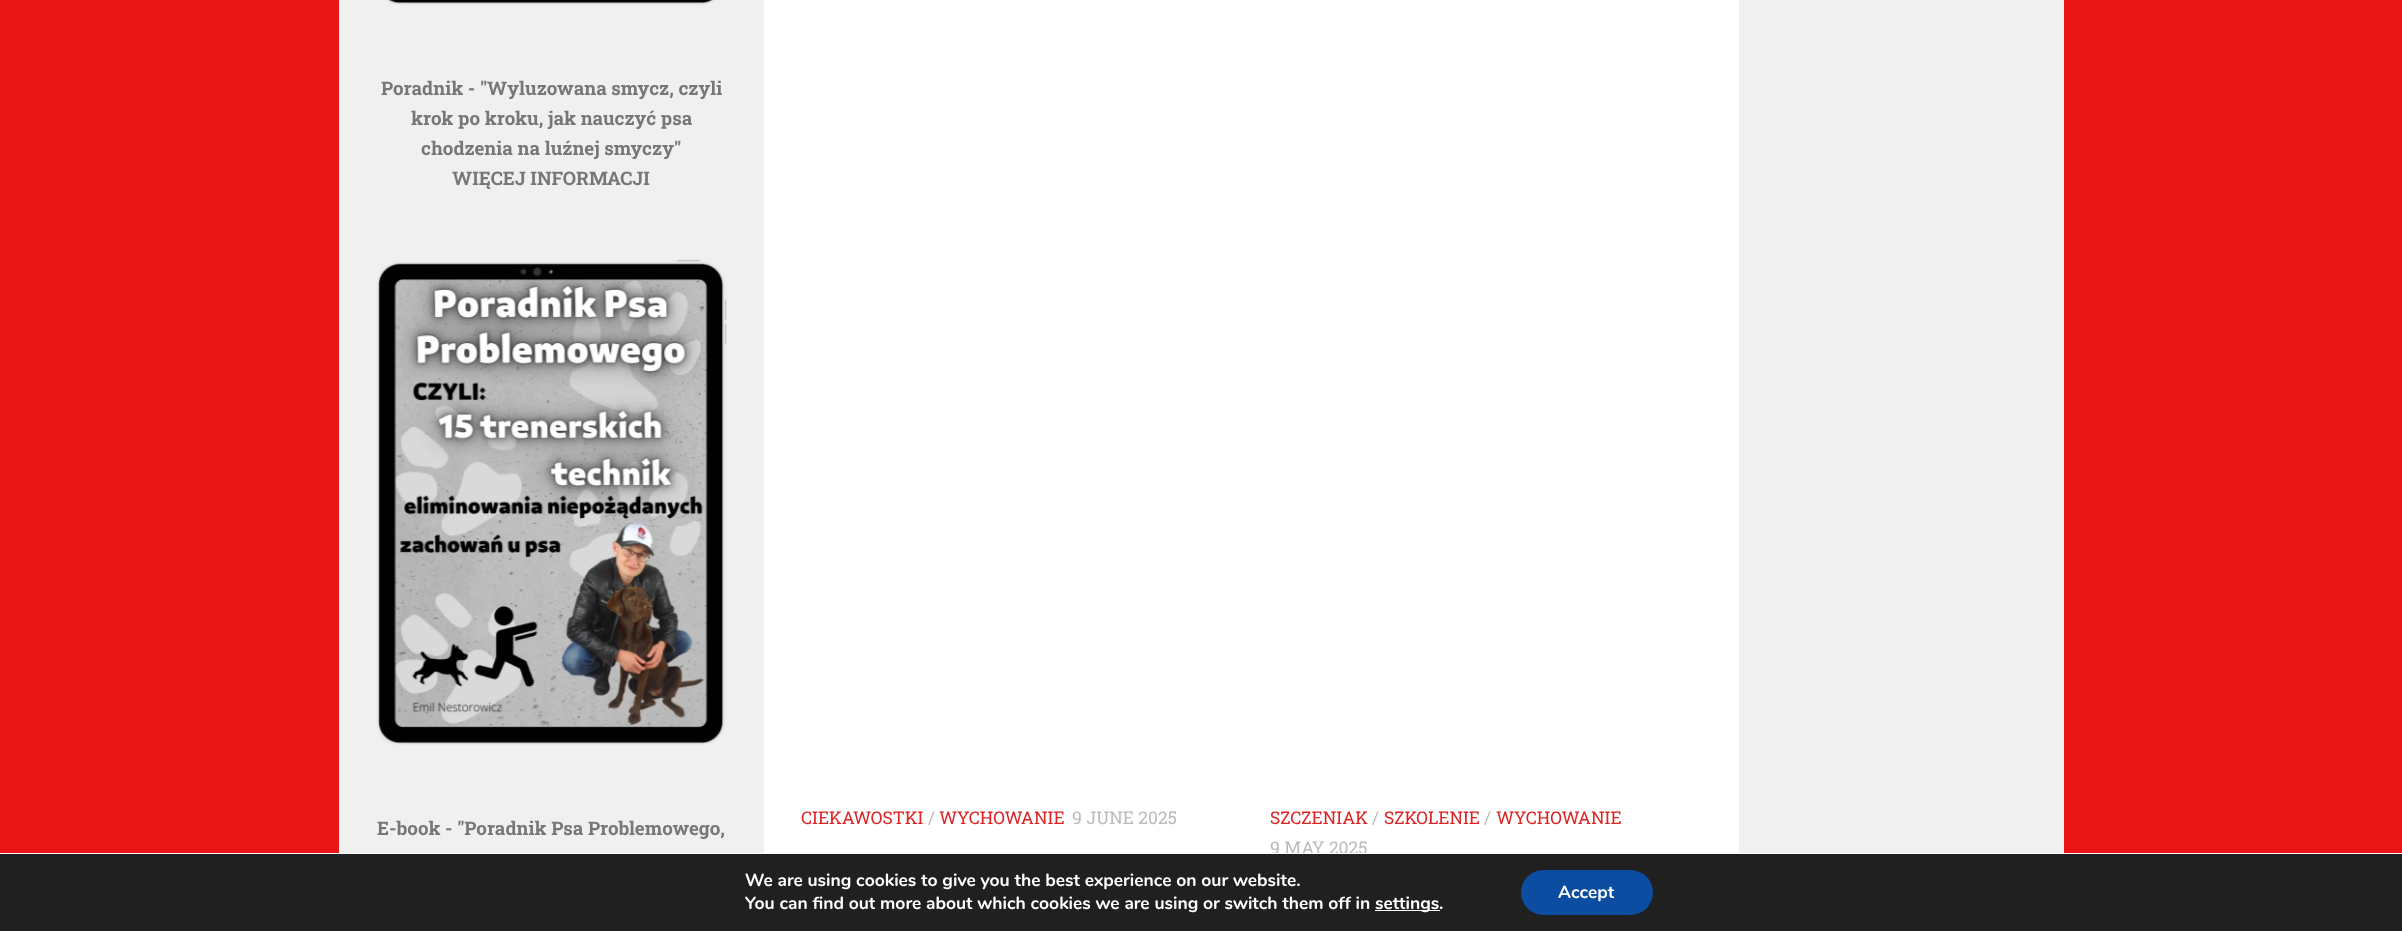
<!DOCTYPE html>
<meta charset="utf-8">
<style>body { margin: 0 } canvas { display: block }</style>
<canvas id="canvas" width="2402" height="931"></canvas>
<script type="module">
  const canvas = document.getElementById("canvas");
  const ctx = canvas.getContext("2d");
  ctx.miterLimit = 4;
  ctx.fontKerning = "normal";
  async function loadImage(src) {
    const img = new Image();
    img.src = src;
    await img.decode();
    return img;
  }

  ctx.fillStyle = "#ea1515";
  ctx.fillRect(0, 0, 2402, 931);
  ctx.fillStyle = "#ffffff";
  ctx.fillRect(764, 0, 975, 853);
  ctx.fillStyle = "#f0f0f0";
  ctx.fillRect(339, 0, 425, 853);
  ctx.fillRect(1739, 0, 325, 853);
  ctx.drawImage(await loadImage("img1.png"), 385, 0, 331, 5);
  ctx.font = "bold 18.75px Roboto Slab";
  ctx.fillStyle = "#777777";
  ctx.fillText("Poradnik - \"Wyluzowana smycz, czyli", 381, 95);
  ctx.fillText("krok po kroku, jak nauczyć psa", 411, 125);
  ctx.fillText("chodzenia na luźnej smyczy\"", 421, 155);
  ctx.fillText("WIĘCEJ INFORMACJI", 452, 185);
  ctx.drawImage(await loadImage("img2.png"), 376, 259, 351, 486);
  ctx.fillText("E-book - \"Poradnik Psa Problemowego,", 377, 835);
  ctx.font = "17.5px Roboto Slab";
  ctx.fillStyle = "#dd2323";
  ctx.fillText("CIEKAWOSTKI", 801, 824);
  ctx.fillStyle = "#bbbbbb";
  ctx.fillText("/", 928, 824);
  ctx.fillStyle = "#dd2323";
  ctx.fillText("WYCHOWANIE", 939, 824);
  ctx.fillStyle = "#bbbbbb";
  ctx.fillText("9 JUNE 2025", 1072, 824);
  ctx.fillStyle = "#dd2323";
  ctx.fillText("SZCZENIAK", 1270, 824);
  ctx.fillStyle = "#bbbbbb";
  ctx.fillText("/", 1372, 824);
  ctx.fillStyle = "#dd2323";
  ctx.fillText("SZKOLENIE", 1384, 824);
  ctx.fillStyle = "#bbbbbb";
  ctx.fillText("/", 1484, 824);
  ctx.fillStyle = "#dd2323";
  ctx.fillText("WYCHOWANIE", 1496, 824);
  ctx.fillStyle = "#bbbbbb";
  ctx.fillText("9 MAY 2025", 1270, 854);
  ctx.fillStyle = "#202020";
  ctx.fillRect(0, 854, 2402, 77);
  ctx.fillStyle = "#ffffff";
  ctx.fillRect(0, 853, 2402, 1);
  ctx.font = "bold 17.5px Nunito";
  ctx.fillText("We are using cookies to give you the best experience on our website.", 745, 886);
  ctx.fillText("You can find out more about which cookies we are using or switch them off in", 745, 909);
  ctx.fillRect(1375, 910, 65, 1);
  ctx.fillText("settings.", 1375, 909);
  ctx.fillStyle = "#0c4da2";
  ctx.beginPath();
  ctx.roundRect(1521, 870, 132, 45, 22.5);
  ctx.fill();
  ctx.fillStyle = "#ffffff";
  ctx.fillText("Accept", 1558, 898);
</script>
